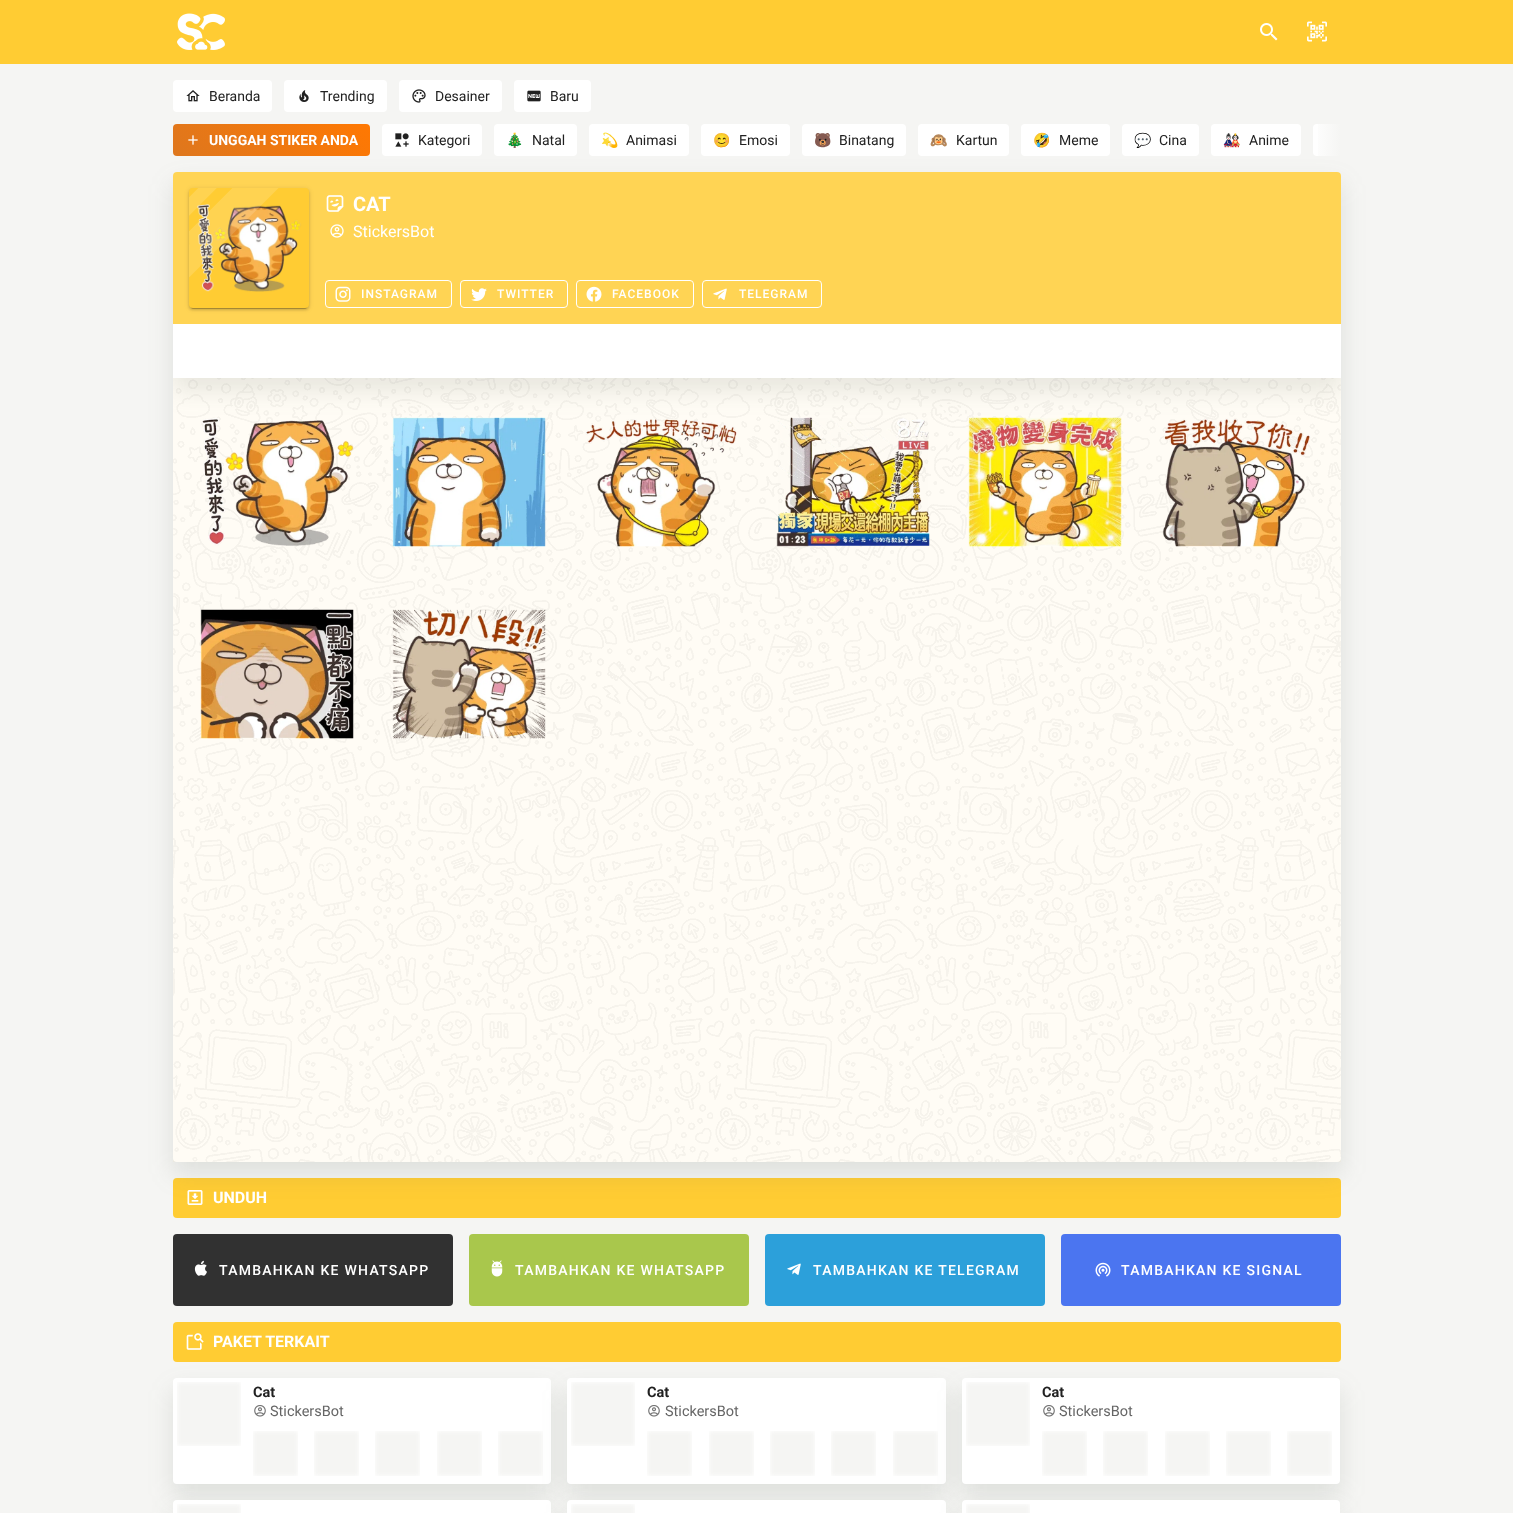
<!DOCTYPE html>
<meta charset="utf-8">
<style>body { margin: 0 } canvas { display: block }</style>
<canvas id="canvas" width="1513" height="1513"></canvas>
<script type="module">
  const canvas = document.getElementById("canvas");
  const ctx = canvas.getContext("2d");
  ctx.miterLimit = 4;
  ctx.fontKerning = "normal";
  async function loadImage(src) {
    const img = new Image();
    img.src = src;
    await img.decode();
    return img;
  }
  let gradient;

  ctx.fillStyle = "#f5f5f3";
  ctx.fillRect(0, 0, 1513, 1513);
  ctx.fillStyle = "#ffcc33";
  ctx.fillRect(0, 0, 1513, 64);
  ctx.drawImage(await loadImage("img1.png"), 177, 13, 48, 37);
  ctx.drawImage(await loadImage("img2.png"), 1260, 23, 18, 18);
  ctx.drawImage(await loadImage("img3.png"), 1307, 21, 20, 21);
  ctx.fillStyle = "#ffffff";
  ctx.beginPath();
  ctx.roundRect(173, 80, 99, 32, 4);
  ctx.fill();
  ctx.drawImage(await loadImage("img4.png"), 186, 90, 14, 12);
  ctx.font = "14px Roboto";
  ctx.fillStyle = "#212121";
  ctx.fillText("Beranda", 209, 101);
  ctx.fillStyle = "#ffffff";
  ctx.beginPath();
  ctx.roundRect(284, 80, 103, 32, 4);
  ctx.fill();
  ctx.drawImage(await loadImage("img5.png"), 299, 90, 10, 12);
  ctx.fillStyle = "#212121";
  ctx.fillText("Trending", 320, 101);
  ctx.fillStyle = "#ffffff";
  ctx.beginPath();
  ctx.roundRect(399, 80, 103, 32, 4);
  ctx.fill();
  ctx.drawImage(await loadImage("img6.png"), 412, 89, 14, 14);
  ctx.fillStyle = "#212121";
  ctx.fillText("Desainer", 435, 101);
  ctx.fillStyle = "#ffffff";
  ctx.beginPath();
  ctx.roundRect(514, 80, 77, 32, 4);
  ctx.fill();
  ctx.drawImage(await loadImage("img7.png"), 527, 90, 14, 12);
  ctx.fillStyle = "#212121";
  ctx.fillText("Baru", 550, 101);
  ctx.fillStyle = "#ffcc33";
  ctx.beginPath();
  ctx.roundRect(173, 1178, 1168, 40, 4);
  ctx.fill();
  ctx.fillStyle = "rgba(102, 110, 98, 0.16)";
  ctx.filter = "blur(12px)";
  ctx.beginPath();
  ctx.roundRect(173, 184, 1168, 990, 4);
  ctx.fill();
  ctx.filter = "none";
  gradient = ctx.createLinearGradient(214, 197, 329, 83);
  gradient.addColorStop(0, "#de771e");
  gradient.addColorStop(1, "#ff7802");
  ctx.fillStyle = gradient;
  ctx.beginPath();
  ctx.roundRect(173, 124, 197, 32, 4);
  ctx.fill();
  ctx.drawImage(await loadImage("img8.png"), 188, 135, 10, 10);
  ctx.font = "bold 14px Roboto";
  ctx.fillStyle = "#ffffff";
  ctx.fillText("UNGGAH STIKER ANDA", 209, 145);
  ctx.beginPath();
  ctx.roundRect(382, 124, 100, 32, 4);
  ctx.fill();
  ctx.drawImage(await loadImage("img9.png"), 395, 133, 14, 14);
  ctx.font = "14px Roboto";
  ctx.fillStyle = "#212121";
  ctx.fillText("Kategori", 418, 145);
  ctx.fillStyle = "#ffffff";
  ctx.beginPath();
  ctx.roundRect(494, 124, 83, 32, 4);
  ctx.fill();
  ctx.font = "14px Noto Color Emoji";
  ctx.fillStyle = "#212121";
  ctx.fillText("🎄", 506, 145);
  ctx.font = "14px Roboto";
  ctx.fillText("Natal", 532, 145);
  ctx.fillStyle = "#ffffff";
  ctx.beginPath();
  ctx.roundRect(589, 124, 100, 32, 4);
  ctx.fill();
  ctx.font = "14px Noto Color Emoji";
  ctx.fillStyle = "#212121";
  ctx.fillText("💫", 601, 145);
  ctx.font = "14px Roboto";
  ctx.fillText("Animasi", 626, 145);
  ctx.fillStyle = "#ffffff";
  ctx.beginPath();
  ctx.roundRect(701, 124, 89, 32, 4);
  ctx.fill();
  ctx.font = "14px Noto Color Emoji";
  ctx.fillStyle = "#212121";
  ctx.fillText("😊", 713, 145);
  ctx.font = "14px Roboto";
  ctx.fillText("Emosi", 739, 145);
  ctx.fillStyle = "#ffffff";
  ctx.beginPath();
  ctx.roundRect(802, 124, 104, 32, 4);
  ctx.fill();
  ctx.font = "14px Noto Color Emoji";
  ctx.fillStyle = "#212121";
  ctx.fillText("🐻", 814, 145);
  ctx.font = "14px Roboto";
  ctx.fillText("Binatang", 839, 145);
  ctx.fillStyle = "#ffffff";
  ctx.beginPath();
  ctx.roundRect(918, 124, 91, 32, 4);
  ctx.fill();
  ctx.font = "14px Noto Color Emoji";
  ctx.fillStyle = "#212121";
  ctx.fillText("🙉", 930, 145);
  ctx.font = "14px Roboto";
  ctx.fillText("Kartun", 956, 145);
  ctx.fillStyle = "#ffffff";
  ctx.beginPath();
  ctx.roundRect(1021, 124, 89, 32, 4);
  ctx.fill();
  ctx.font = "14px Noto Color Emoji";
  ctx.fillStyle = "#212121";
  ctx.fillText("🤣", 1033, 145);
  ctx.font = "14px Roboto";
  ctx.fillText("Meme", 1059, 145);
  ctx.fillStyle = "#ffffff";
  ctx.beginPath();
  ctx.roundRect(1122, 124, 77, 32, 4);
  ctx.fill();
  ctx.font = "14px Noto Color Emoji";
  ctx.fillStyle = "#212121";
  ctx.fillText("💬", 1134, 145);
  ctx.font = "14px Roboto";
  ctx.fillText("Cina", 1159, 145);
  ctx.fillStyle = "#ffffff";
  ctx.beginPath();
  ctx.roundRect(1211, 124, 90, 32, 4);
  ctx.fill();
  ctx.font = "14px Noto Color Emoji";
  ctx.fillStyle = "#212121";
  ctx.fillText("🎎", 1223, 145);
  ctx.font = "14px Roboto";
  ctx.fillText("Anime", 1249, 145);
  ctx.fillStyle = "#ffffff";
  ctx.beginPath();
  ctx.roundRect(1313, 124, 28, 32, [4, 0, 0, 4]);
  ctx.fill();
  gradient = ctx.createLinearGradient(1311, 140, 1341, 140);
  gradient.addColorStop(0, "rgba(245, 245, 243, 0)");
  gradient.addColorStop(1, "#f5f5f3");
  ctx.fillStyle = gradient;
  ctx.fillRect(1318, 124, 23, 32);
  ctx.fillStyle = "#ffffff";
  ctx.beginPath();
  ctx.roundRect(173, 172, 1168, 990, 4);
  ctx.fill();
  ctx.save();
  ctx.beginPath();
  ctx.roundRect(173, 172, 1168, 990, 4);
  ctx.clip();
  ctx.beginPath();
  ctx.moveTo(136, 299);
  ctx.lineTo(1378, 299);
  ctx.lineTo(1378, 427);
  ctx.lineTo(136, 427);
  ctx.closePath();
  ctx.moveTo(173, 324);
  ctx.lineTo(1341, 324);
  ctx.lineTo(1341, 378);
  ctx.lineTo(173, 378);
  ctx.closePath();
  ctx.clip("evenodd");
  ctx.fillStyle = "rgba(102, 110, 98, 0.16)";
  ctx.filter = "blur(12px)";
  ctx.beginPath();
  ctx.rect(173, 336, 1168, 54);
  ctx.fill();
  ctx.filter = "none";
  ctx.restore();
  ctx.fillStyle = "rgba(255, 204, 51, 0.84)";
  ctx.beginPath();
  ctx.roundRect(173, 172, 1168, 152, [4, 4, 0, 0]);
  ctx.fill();
  ctx.fillStyle = "rgba(0, 0, 0, 0.12)";
  ctx.filter = "blur(2.5px)";
  ctx.beginPath();
  ctx.roundRect(189, 189, 120, 120, 4);
  ctx.fill();
  ctx.filter = "none";
  ctx.fillStyle = "rgba(0, 0, 0, 0.14)";
  ctx.filter = "blur(1px)";
  ctx.beginPath();
  ctx.roundRect(189, 190, 120, 120, 4);
  ctx.fill();
  ctx.filter = "none";
  ctx.fillStyle = "rgba(0, 0, 0, 0.2)";
  ctx.filter = "blur(0.5px)";
  ctx.beginPath();
  ctx.roundRect(191, 193, 116, 116, 2);
  ctx.fill();
  ctx.filter = "none";
  ctx.fillStyle = "#ffcc33";
  ctx.beginPath();
  ctx.roundRect(189, 188, 120, 120, 4);
  ctx.fill();
  ctx.drawImage(await loadImage("img11.png"), 197, 204, 105, 88);
  ctx.drawImage(await loadImage("img10.png"), 189, 188, 90, 89);
  ctx.drawImage(await loadImage("img12.png"), 326, 195, 18, 17);
  ctx.font = "bold 20px Roboto";
  ctx.fillStyle = "#ffffff";
  ctx.fillText("CAT", 353, 211);
  ctx.drawImage(await loadImage("img13.png"), 330, 224, 14, 14);
  ctx.font = "16px Roboto";
  ctx.fillText("StickersBot", 353, 237);
  ctx.beginPath();
  ctx.roundRect(325.5, 280.5, 126, 27, 3.5);
  ctx.strokeStyle = "#ffffff";
  ctx.stroke();
  ctx.drawImage(await loadImage("img14.png"), 335, 286, 16, 16);
  ctx.letterSpacing = "1px";
  ctx.font = "500 12px Roboto";
  ctx.fillText("INSTAGRAM", 361, 298);
  ctx.beginPath();
  ctx.roundRect(460.5, 280.5, 107, 27, 3.5);
  ctx.stroke();
  ctx.drawImage(await loadImage("img15.png"), 471, 288, 16, 13);
  ctx.fillText("TWITTER", 497, 298);
  ctx.beginPath();
  ctx.roundRect(576.5, 280.5, 117, 27, 3.5);
  ctx.stroke();
  ctx.drawImage(await loadImage("img16.png"), 586, 286, 16, 16);
  ctx.fillText("FACEBOOK", 612, 298);
  ctx.beginPath();
  ctx.roundRect(702.5, 280.5, 119, 27, 3.5);
  ctx.stroke();
  ctx.drawImage(await loadImage("img17.png"), 713, 288, 14, 12);
  ctx.fillText("TELEGRAM", 739, 298);
  ctx.fillStyle = "rgba(255, 204, 51, 0.05)";
  ctx.fillRect(173, 378, 1168, 784);
  ctx.drawImage(await loadImage("img18.png"), 173, 378, 1168, 784);
  ctx.drawImage(await loadImage("img19.png"), 202, 417, 152, 129);
  ctx.drawImage(await loadImage("img20.png"), 392, 417, 154, 130);
  ctx.drawImage(await loadImage("img21.png"), 585, 419, 152, 128);
  ctx.drawImage(await loadImage("img22.png"), 776, 417, 154, 130);
  ctx.drawImage(await loadImage("img23.png"), 968, 417, 154, 130);
  ctx.drawImage(await loadImage("img24.png"), 1162, 418, 149, 129);
  ctx.drawImage(await loadImage("img25.png"), 200, 609, 154, 130);
  ctx.drawImage(await loadImage("img26.png"), 392, 609, 154, 130);
  ctx.drawImage(await loadImage("img27.png"), 187, 1190, 16, 15);
  ctx.letterSpacing = "0px";
  ctx.font = "bold 16px Roboto";
  ctx.fillStyle = "#ffffff";
  ctx.fillText("UNDUH", 213, 1203);
  ctx.fillStyle = "#313131";
  ctx.beginPath();
  ctx.roundRect(173, 1234, 280, 72, 4);
  ctx.fill();
  ctx.drawImage(await loadImage("img28.png"), 194, 1260, 13, 16);
  ctx.letterSpacing = "1.25px";
  ctx.font = "500 14px Roboto";
  ctx.fillStyle = "#ffffff";
  ctx.fillText("TAMBAHKAN KE WHATSAPP", 219, 1275);
  ctx.fillStyle = "#a9c74c";
  ctx.beginPath();
  ctx.roundRect(469, 1234, 280, 72, 4);
  ctx.fill();
  ctx.drawImage(await loadImage("img29.png"), 491, 1260, 12, 17);
  ctx.fillStyle = "#ffffff";
  ctx.fillText("TAMBAHKAN KE WHATSAPP", 515, 1275);
  ctx.fillStyle = "#2ca0da";
  ctx.beginPath();
  ctx.roundRect(765, 1234, 280, 72, 4);
  ctx.fill();
  ctx.drawImage(await loadImage("img30.png"), 787, 1263, 14, 12);
  ctx.fillStyle = "#ffffff";
  ctx.fillText("TAMBAHKAN KE TELEGRAM", 813, 1275);
  ctx.fillStyle = "#4b75f0";
  ctx.beginPath();
  ctx.roundRect(1061, 1234, 280, 72, 4);
  ctx.fill();
  ctx.drawImage(await loadImage("img31.png"), 1095, 1262, 16, 15);
  ctx.fillStyle = "#ffffff";
  ctx.fillText("TAMBAHKAN KE SIGNAL", 1121, 1275);
  ctx.fillStyle = "#ffcc33";
  ctx.beginPath();
  ctx.roundRect(173, 1322, 1168, 40, 4);
  ctx.fill();
  ctx.drawImage(await loadImage("img32.png"), 186, 1333, 18, 17);
  ctx.letterSpacing = "0px";
  ctx.font = "bold 16px Roboto";
  ctx.fillStyle = "#ffffff";
  ctx.fillText("PAKET TERKAIT", 213, 1347);
  ctx.fillStyle = "rgba(102, 110, 98, 0.16)";
  ctx.filter = "blur(12px)";
  ctx.beginPath();
  ctx.roundRect(173, 1390, 378, 106, 4);
  ctx.fill();
  ctx.filter = "none";
  ctx.fillStyle = "#ffffff";
  ctx.beginPath();
  ctx.roundRect(173, 1378, 378, 106, 4);
  ctx.fill();
  ctx.drawImage(await loadImage("img33.png"), 177, 1382, 64, 64);
  ctx.font = "bold 14.5px Roboto";
  ctx.fillStyle = "#212121";
  ctx.fillText("Cat", 253, 1397);
  ctx.drawImage(await loadImage("img34.png"), 254, 1405, 12, 12);
  ctx.font = "14.5px Roboto";
  ctx.fillStyle = "#666666";
  ctx.fillText("StickersBot", 270, 1416);
  ctx.drawImage(await loadImage("img35.png"), 253, 1431, 45, 45);
  ctx.drawImage(await loadImage("img35.png"), 314, 1431, 45, 45);
  ctx.drawImage(await loadImage("img35.png"), 375, 1431, 45, 45);
  ctx.drawImage(await loadImage("img35.png"), 437, 1431, 45, 45);
  ctx.drawImage(await loadImage("img35.png"), 498, 1431, 45, 45);
  ctx.fillStyle = "rgba(102, 110, 98, 0.16)";
  ctx.filter = "blur(12px)";
  ctx.beginPath();
  ctx.roundRect(567, 1390, 379, 106, 4);
  ctx.fill();
  ctx.filter = "none";
  ctx.fillStyle = "#ffffff";
  ctx.beginPath();
  ctx.roundRect(567, 1378, 379, 106, 4);
  ctx.fill();
  ctx.drawImage(await loadImage("img33.png"), 571, 1382, 64, 64);
  ctx.font = "bold 14.5px Roboto";
  ctx.fillStyle = "#212121";
  ctx.fillText("Cat", 647, 1397);
  ctx.drawImage(await loadImage("img34.png"), 648, 1405, 12, 12);
  ctx.font = "14.5px Roboto";
  ctx.fillStyle = "#666666";
  ctx.fillText("StickersBot", 665, 1416);
  ctx.drawImage(await loadImage("img35.png"), 647, 1431, 45, 45);
  ctx.drawImage(await loadImage("img35.png"), 709, 1431, 45, 45);
  ctx.drawImage(await loadImage("img35.png"), 770, 1431, 45, 45);
  ctx.drawImage(await loadImage("img35.png"), 831, 1431, 45, 45);
  ctx.drawImage(await loadImage("img35.png"), 893, 1431, 45, 45);
  ctx.fillStyle = "rgba(102, 110, 98, 0.16)";
  ctx.filter = "blur(12px)";
  ctx.beginPath();
  ctx.roundRect(962, 1390, 378, 106, 4);
  ctx.fill();
  ctx.filter = "none";
  ctx.fillStyle = "#ffffff";
  ctx.beginPath();
  ctx.roundRect(962, 1378, 378, 106, 4);
  ctx.fill();
  ctx.drawImage(await loadImage("img33.png"), 966, 1382, 64, 64);
  ctx.font = "bold 14.5px Roboto";
  ctx.fillStyle = "#212121";
  ctx.fillText("Cat", 1042, 1397);
  ctx.drawImage(await loadImage("img34.png"), 1043, 1405, 12, 12);
  ctx.font = "14.5px Roboto";
  ctx.fillStyle = "#666666";
  ctx.fillText("StickersBot", 1059, 1416);
  ctx.drawImage(await loadImage("img35.png"), 1042, 1431, 45, 45);
  ctx.drawImage(await loadImage("img35.png"), 1103, 1431, 45, 45);
  ctx.drawImage(await loadImage("img35.png"), 1165, 1431, 45, 45);
  ctx.drawImage(await loadImage("img35.png"), 1226, 1431, 45, 45);
  ctx.drawImage(await loadImage("img35.png"), 1287, 1431, 45, 45);
  ctx.fillStyle = "rgba(102, 110, 98, 0.16)";
  ctx.filter = "blur(12px)";
  ctx.beginPath();
  ctx.roundRect(173, 1512, 378, 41, 4);
  ctx.fill();
  ctx.filter = "none";
  ctx.fillStyle = "#ffffff";
  ctx.beginPath();
  ctx.roundRect(173, 1500, 378, 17, 4);
  ctx.fill();
  ctx.drawImage(await loadImage("img36.png"), 177, 1504, 64, 9);
  ctx.fillStyle = "rgba(102, 110, 98, 0.16)";
  ctx.filter = "blur(12px)";
  ctx.beginPath();
  ctx.roundRect(567, 1512, 379, 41, 4);
  ctx.fill();
  ctx.filter = "none";
  ctx.fillStyle = "#ffffff";
  ctx.beginPath();
  ctx.roundRect(567, 1500, 379, 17, 4);
  ctx.fill();
  ctx.drawImage(await loadImage("img36.png"), 571, 1504, 64, 9);
  ctx.fillStyle = "rgba(102, 110, 98, 0.16)";
  ctx.filter = "blur(12px)";
  ctx.beginPath();
  ctx.roundRect(962, 1512, 378, 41, 4);
  ctx.fill();
  ctx.filter = "none";
  ctx.fillStyle = "#ffffff";
  ctx.beginPath();
  ctx.roundRect(962, 1500, 378, 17, 4);
  ctx.fill();
  ctx.drawImage(await loadImage("img36.png"), 966, 1504, 64, 9);
</script>
